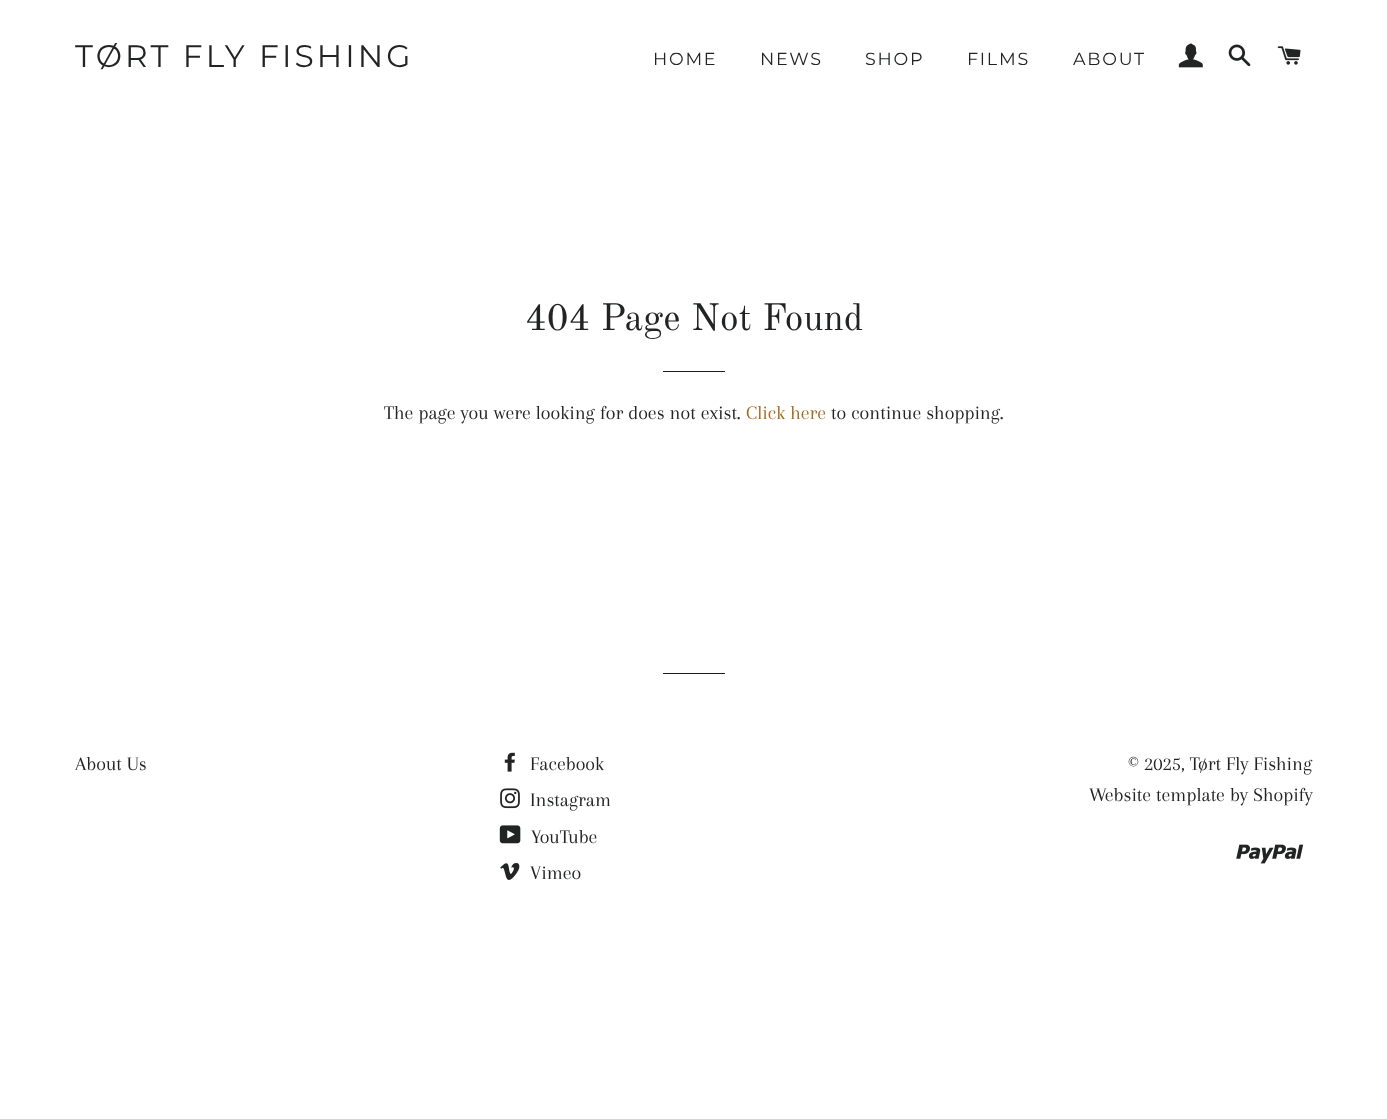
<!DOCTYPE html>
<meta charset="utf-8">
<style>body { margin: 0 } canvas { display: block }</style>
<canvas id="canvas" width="1387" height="1119"></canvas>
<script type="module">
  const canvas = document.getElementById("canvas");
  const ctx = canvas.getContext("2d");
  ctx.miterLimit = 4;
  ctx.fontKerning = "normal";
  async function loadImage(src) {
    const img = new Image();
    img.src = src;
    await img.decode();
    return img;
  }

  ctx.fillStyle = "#ffffff";
  ctx.fillRect(0, 0, 1387, 1119);
  ctx.letterSpacing = "3.1px";
  ctx.font = "100 31.25px Montserrat";
  ctx.fillStyle = "#222323";
  ctx.fillText("TØRT FLY FISHING", 75, 67);
  ctx.letterSpacing = "1.75px";
  ctx.font = "100 17.5px Montserrat";
  ctx.fillText("HOME", 653, 65);
  ctx.fillText("NEWS", 760, 65);
  ctx.fillText("SHOP", 865, 65);
  ctx.fillText("FILMS", 967, 65);
  ctx.fillText("ABOUT", 1073, 65);
  ctx.drawImage(await loadImage("img1.png"), 1178, 43, 25, 25);
  ctx.drawImage(await loadImage("img2.png"), 1228, 44, 23, 23);
  ctx.drawImage(await loadImage("img3.png"), 1277, 46, 24, 19);
  ctx.letterSpacing = "0px";
  ctx.font = "37.5px Old Standard TT";
  ctx.fillText("404 Page Not Found", 525, 330);
  ctx.fillStyle = "#1c1d1d";
  ctx.fillRect(663, 371, 62, 1);
  ctx.font = "20px Arapey";
  ctx.fillStyle = "#222323";
  ctx.fillText("The page you were looking for does not exist.", 384, 419);
  ctx.fillStyle = "#a26b25";
  ctx.fillText("Click here", 746, 419);
  ctx.fillStyle = "#222323";
  ctx.fillText("to continue shopping.", 831, 419);
  ctx.fillStyle = "#1c1d1d";
  ctx.fillRect(663, 673, 62, 1);
  ctx.fillStyle = "#222323";
  ctx.fillText("About Us", 75, 770);
  ctx.drawImage(await loadImage("img4.png"), 504, 752, 11, 20);
  ctx.fillText("Facebook", 530, 770);
  ctx.drawImage(await loadImage("img5.png"), 500, 788, 20, 21);
  ctx.fillText("Instagram", 530, 806);
  ctx.drawImage(await loadImage("img6.png"), 499, 825, 22, 19);
  ctx.fillText("YouTube", 531, 843);
  ctx.drawImage(await loadImage("img7.png"), 500, 863, 20, 17);
  ctx.fillText("Vimeo", 530, 879);
  ctx.fillText("© 2025, Tørt Fly Fishing", 1128, 770);
  ctx.fillText("Website template by Shopify", 1089, 801);
  ctx.drawImage(await loadImage("img8.png"), 1236, 844, 68, 20);
</script>
